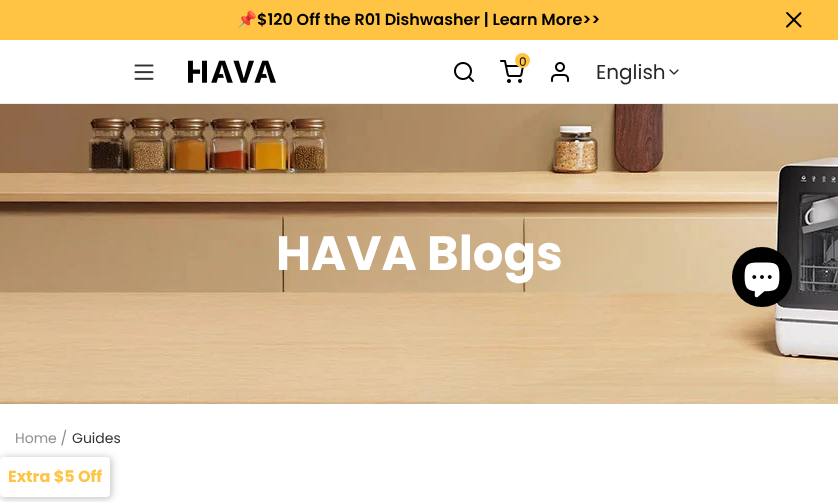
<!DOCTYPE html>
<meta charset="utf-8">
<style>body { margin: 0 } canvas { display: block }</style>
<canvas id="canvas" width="838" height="502"></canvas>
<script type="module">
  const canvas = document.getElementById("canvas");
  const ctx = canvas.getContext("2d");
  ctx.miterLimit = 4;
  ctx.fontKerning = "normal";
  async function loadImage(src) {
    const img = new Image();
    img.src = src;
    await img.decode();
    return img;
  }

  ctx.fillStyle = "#ffffff";
  ctx.fillRect(0, 0, 838, 502);
  ctx.fillStyle = "#ffc443";
  ctx.fillRect(0, 0, 838, 40);
  ctx.font = "bold 16px Noto Color Emoji";
  ctx.fillStyle = "#000000";
  ctx.fillText("📌", 237, 25);
  ctx.font = "600 16px Poppins";
  ctx.fillText("$120 Off the R01 Dishwasher | Learn More>>", 257, 25);
  ctx.drawImage(await loadImage("img1.png"), 786, 12, 16, 16);
  ctx.fillStyle = "#eaeaea";
  ctx.fillRect(0, 103, 838, 1);
  ctx.drawImage(await loadImage("img2.png"), 134, 64, 20, 16);
  ctx.drawImage(await loadImage("img3.png"), 188, 60, 88, 23);
  ctx.drawImage(await loadImage("img4.png"), 454, 62, 20, 20);
  ctx.drawImage(await loadImage("img5.png"), 500, 60, 24, 23);
  ctx.fillStyle = "#ffc443";
  ctx.beginPath();
  ctx.arc(522.5, 60.5, 7.5, 0, Math.PI * 2);
  ctx.fill();
  ctx.font = "12px Poppins";
  ctx.fillStyle = "#000000";
  ctx.fillText("0", 519, 66);
  ctx.drawImage(await loadImage("img6.png"), 551, 62, 18, 20);
  ctx.font = "20px Poppins";
  ctx.fillStyle = "#272727";
  ctx.fillText("English", 596, 79);
  ctx.drawImage(await loadImage("img7.png"), 669, 69, 10, 6);
  ctx.drawImage(await loadImage("img8.png"), 0, 104, 838, 300);
  ctx.font = "bold 48px Poppins";
  ctx.fillStyle = "#ffffff";
  ctx.fillText("HAVA Blogs", 276, 270);
  ctx.font = "14px Poppins";
  ctx.fillStyle = "#8f8f8f";
  ctx.fillText("Home /", 15, 443);
  ctx.fillStyle = "#333333";
  ctx.fillText("Guides", 72, 443);
  ctx.fillStyle = "#000000";
  ctx.beginPath();
  ctx.arc(762, 277, 30, 0, Math.PI * 2);
  ctx.fill();
  ctx.drawImage(await loadImage("img9.png"), 744, 262, 36, 36);
  ctx.fillStyle = "rgba(0, 0, 0, 0.22)";
  ctx.filter = "blur(3.5px)";
  ctx.beginPath();
  ctx.roundRect(0, 457, 112, 42, 5);
  ctx.fill();
  ctx.filter = "none";
  ctx.fillStyle = "#ffffff";
  ctx.beginPath();
  ctx.roundRect(0, 457, 110, 40, 4);
  ctx.fill();
  ctx.font = "bold 16px Poppins";
  ctx.fillStyle = "#ffc443";
  ctx.fillText("Extra $5 Off", 8, 482);
</script>
